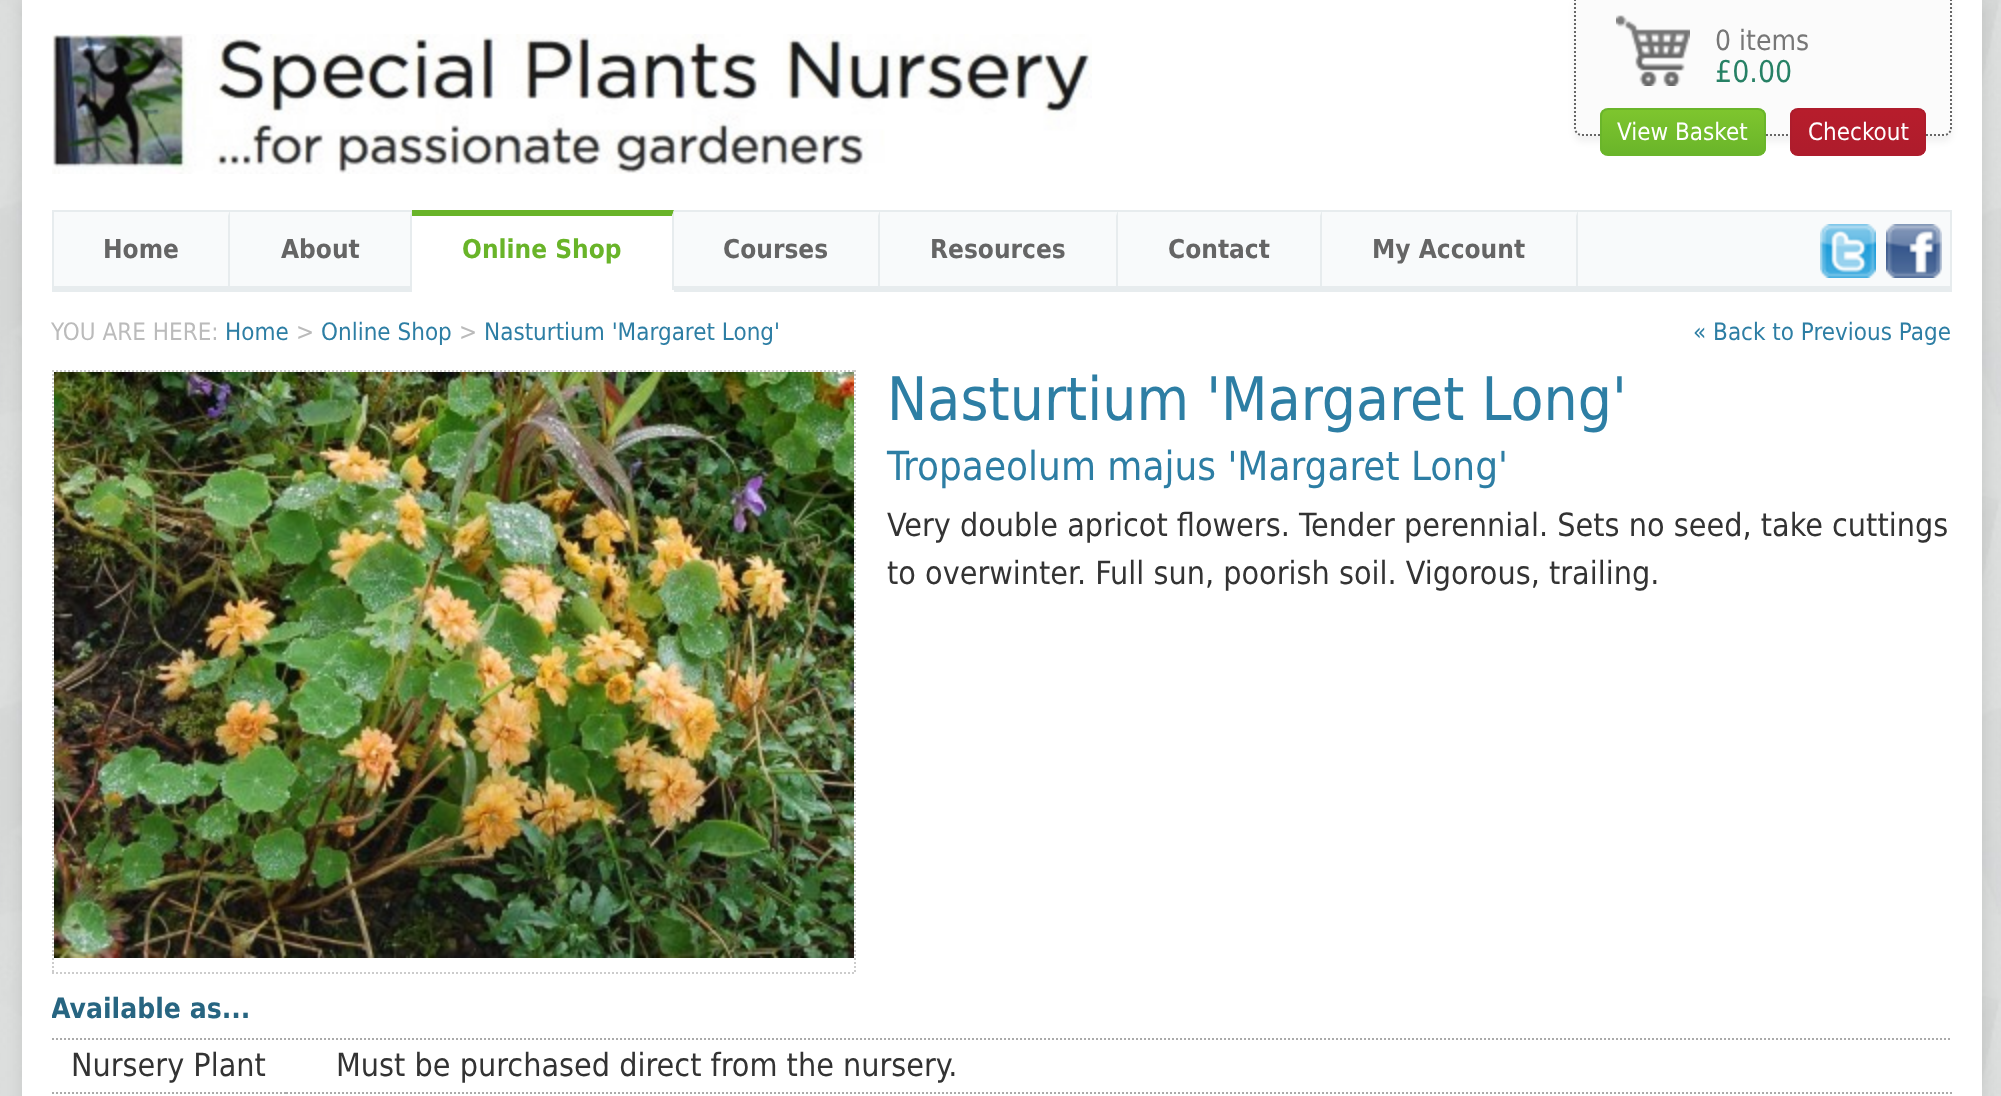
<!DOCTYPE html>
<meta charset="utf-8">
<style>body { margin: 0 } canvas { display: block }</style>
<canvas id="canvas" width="2001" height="1096"></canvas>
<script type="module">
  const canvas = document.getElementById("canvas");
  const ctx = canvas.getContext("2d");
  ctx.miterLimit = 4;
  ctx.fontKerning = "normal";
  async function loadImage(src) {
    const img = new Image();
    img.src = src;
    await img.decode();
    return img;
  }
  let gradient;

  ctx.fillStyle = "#ffffff";
  ctx.fillRect(0, 0, 2001, 1096);
  ctx.drawImage(await loadImage("img1.png"), 0, 0, 2001, 1096);
  ctx.fillStyle = "rgba(0, 0, 0, 0.1)";
  ctx.filter = "blur(8px)";
  ctx.beginPath();
  ctx.rect(22, 0, 1960, 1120);
  ctx.fill();
  ctx.filter = "none";
  ctx.fillStyle = "#ffffff";
  ctx.fillRect(22, 0, 1960, 1096);
  ctx.drawImage(await loadImage("img2.png"), 52, 34, 1040, 140);
  ctx.fillStyle = "rgba(0, 0, 0, 0.05)";
  ctx.filter = "blur(3px)";
  ctx.beginPath();
  ctx.roundRect(1574, -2, 378, 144, 8);
  ctx.fill();
  ctx.filter = "none";
  ctx.fillStyle = "#fbfbfb";
  ctx.beginPath();
  ctx.roundRect(1574, 0, 378, 136, [0, 0, 8, 8]);
  ctx.fill();
  ctx.drawImage(await loadImage("img3.png"), 1616, 15, 74, 71);
  ctx.beginPath();
  ctx.moveTo(1582, -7);
  ctx.lineTo(1944, -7);
  ctx.bezierCurveTo(1948, -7, 1951, -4, 1951, 0);
  ctx.lineTo(1951, 128);
  ctx.bezierCurveTo(1951, 132, 1948, 135, 1944, 135);
  ctx.lineTo(1582, 135);
  ctx.bezierCurveTo(1578, 135, 1575, 132, 1575, 128);
  ctx.lineTo(1575, 0);
  ctx.bezierCurveTo(1575, -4, 1578, -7, 1582, -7);
  ctx.closePath();
  ctx.strokeStyle = "#666666";
  ctx.lineWidth = 2;
  ctx.setLineDash([2, 2]);
  ctx.stroke();
  ctx.font = "28px DejaVu Sans";
  ctx.fillStyle = "#777777";
  ctx.fillText("0 items", 1715, 50);
  ctx.font = "30px DejaVu Sans";
  ctx.fillStyle = "#278165";
  ctx.fillText("£0.00", 1715, 82);
  ctx.save();
  ctx.beginPath();
  ctx.roundRect(1600, 108, 166, 48, 8);
  ctx.clip();
  gradient = ctx.createLinearGradient(1683, 110, 1683, 154);
  gradient.addColorStop(0, "#7ec52e");
  gradient.addColorStop(1, "#6ab52a");
  ctx.fillStyle = gradient;
  ctx.fillRect(1600, 110, 166, 44);
  ctx.restore();
  ctx.beginPath();
  ctx.roundRect(1601, 109, 164, 46, 7);
  ctx.strokeStyle = "#6ab52a";
  ctx.setLineDash([]);
  ctx.stroke();
  ctx.font = "24px DejaVu Sans";
  ctx.fillStyle = "#ffffff";
  ctx.fillText("View Basket", 1617, 140);
  ctx.save();
  ctx.beginPath();
  ctx.roundRect(1790, 108, 136, 48, 8);
  ctx.clip();
  gradient = ctx.createLinearGradient(1858, 110, 1858, 154);
  gradient.addColorStop(0, "#b71d2c");
  gradient.addColorStop(1, "#ae1c2c");
  ctx.fillStyle = gradient;
  ctx.fillRect(1790, 110, 136, 44);
  ctx.restore();
  ctx.beginPath();
  ctx.roundRect(1791, 109, 134, 46, 7);
  ctx.strokeStyle = "#ae1c2c";
  ctx.stroke();
  ctx.fillText("Checkout", 1808, 140);
  ctx.fillStyle = "#f8fafb";
  ctx.fillRect(54, 212, 1896, 74);
  ctx.fillStyle = "#e7ecee";
  ctx.fillRect(52, 210, 1900, 2);
  ctx.fillRect(1950, 210, 2, 82);
  ctx.fillRect(52, 286, 1900, 6);
  ctx.fillRect(52, 210, 2, 82);
  ctx.beginPath();
  ctx.moveTo(230, 210);
  ctx.lineTo(230, 290);
  ctx.lineTo(228, 290);
  ctx.lineTo(228, 216);
  ctx.closePath();
  ctx.fill();
  ctx.font = "bold 26px DejaVu Sans";
  ctx.fillStyle = "#656565";
  ctx.fillText("Home", 103, 258);
  ctx.fillStyle = "#e7ecee";
  ctx.beginPath();
  ctx.moveTo(412, 210);
  ctx.lineTo(412, 290);
  ctx.lineTo(410, 290);
  ctx.lineTo(410, 216);
  ctx.closePath();
  ctx.fill();
  ctx.fillStyle = "#656565";
  ctx.fillText("About", 281, 258);
  ctx.fillStyle = "#ffffff";
  ctx.fillRect(412, 210, 262, 80);
  ctx.fillStyle = "#69b429";
  ctx.beginPath();
  ctx.moveTo(412, 210);
  ctx.lineTo(674, 210);
  ctx.lineTo(672, 216);
  ctx.lineTo(412, 216);
  ctx.closePath();
  ctx.fill();
  ctx.fillStyle = "#e7ecee";
  ctx.beginPath();
  ctx.moveTo(674, 210);
  ctx.lineTo(674, 292);
  ctx.lineTo(672, 290);
  ctx.lineTo(672, 216);
  ctx.closePath();
  ctx.fill();
  ctx.fillStyle = "#ffffff";
  ctx.fillRect(412, 290, 262, 2);
  ctx.fillStyle = "#69b429";
  ctx.fillText("Online Shop", 462, 258);
  ctx.fillStyle = "#e7ecee";
  ctx.beginPath();
  ctx.moveTo(880, 210);
  ctx.lineTo(880, 290);
  ctx.lineTo(878, 290);
  ctx.lineTo(878, 216);
  ctx.closePath();
  ctx.fill();
  ctx.fillStyle = "#656565";
  ctx.fillText("Courses", 723, 258);
  ctx.fillStyle = "#e7ecee";
  ctx.beginPath();
  ctx.moveTo(1118, 210);
  ctx.lineTo(1118, 290);
  ctx.lineTo(1116, 290);
  ctx.lineTo(1116, 216);
  ctx.closePath();
  ctx.fill();
  ctx.fillStyle = "#656565";
  ctx.fillText("Resources", 930, 258);
  ctx.fillStyle = "#e7ecee";
  ctx.beginPath();
  ctx.moveTo(1322, 210);
  ctx.lineTo(1322, 290);
  ctx.lineTo(1320, 290);
  ctx.lineTo(1320, 216);
  ctx.closePath();
  ctx.fill();
  ctx.fillStyle = "#656565";
  ctx.fillText("Contact", 1168, 258);
  ctx.fillStyle = "#e7ecee";
  ctx.beginPath();
  ctx.moveTo(1578, 210);
  ctx.lineTo(1578, 290);
  ctx.lineTo(1576, 290);
  ctx.lineTo(1576, 216);
  ctx.closePath();
  ctx.fill();
  ctx.fillStyle = "#656565";
  ctx.fillText("My Account", 1372, 258);
  ctx.drawImage(await loadImage("img4.png"), 1820, 224, 56, 54);
  ctx.drawImage(await loadImage("img5.png"), 1886, 224, 56, 54);
  ctx.font = "24px DejaVu Sans";
  ctx.fillStyle = "#bbbbbb";
  ctx.fillText("YOU ARE HERE:", 51, 340);
  ctx.fillStyle = "#2d7ea4";
  ctx.fillText("Home", 225, 340);
  ctx.fillStyle = "#bbbbbb";
  ctx.fillText(">", 296, 340);
  ctx.fillStyle = "#2d7ea4";
  ctx.fillText("Online Shop", 321, 340);
  ctx.fillStyle = "#bbbbbb";
  ctx.fillText(">", 459, 340);
  ctx.fillStyle = "#2d7ea4";
  ctx.fillText("Nasturtium 'Margaret Long'", 484, 340);
  ctx.fillText("« Back to Previous Page", 1693, 340);
  ctx.beginPath();
  ctx.moveTo(52, 371);
  ctx.lineTo(856, 371);
  ctx.strokeStyle = "#cccccc";
  ctx.setLineDash([2, 2]);
  ctx.stroke();
  ctx.beginPath();
  ctx.moveTo(855, 370);
  ctx.lineTo(855, 974);
  ctx.stroke();
  ctx.beginPath();
  ctx.moveTo(52, 973);
  ctx.lineTo(856, 973);
  ctx.stroke();
  ctx.beginPath();
  ctx.moveTo(53, 370);
  ctx.lineTo(53, 974);
  ctx.stroke();
  ctx.drawImage(await loadImage("img6.png"), 54, 372, 800, 586);
  ctx.font = "60px DejaVu Sans";
  ctx.fillText("Nasturtium 'Margaret Long'", 887, 420);
  ctx.font = "40px DejaVu Sans";
  ctx.fillText("Tropaeolum majus 'Margaret Long'", 887, 480);
  ctx.font = "32px DejaVu Sans";
  ctx.fillStyle = "#333333";
  ctx.fillText("Very double apricot flowers. Tender perennial. Sets no seed, take cuttings", 887, 536);
  ctx.fillText("to overwinter. Full sun, poorish soil. Vigorous, trailing.", 887, 584);
  ctx.save();
  ctx.beginPath();
  ctx.rect(52, 370, 1900, 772);
  ctx.clip();
  ctx.font = "bold 28px DejaVu Sans";
  ctx.fillStyle = "#276581";
  ctx.fillText("Available as...", 51, 1018);
  ctx.restore();
  ctx.beginPath();
  ctx.moveTo(52, 1039);
  ctx.lineTo(1952, 1039);
  ctx.strokeStyle = "#aaaaaa";
  ctx.stroke();
  ctx.beginPath();
  ctx.moveTo(52, 1093);
  ctx.lineTo(286, 1093);
  ctx.stroke();
  ctx.fillText("Nursery Plant", 71, 1076);
  ctx.beginPath();
  ctx.moveTo(286, 1093);
  ctx.lineTo(978, 1093);
  ctx.stroke();
  ctx.fillText("Must be purchased direct from the nursery.", 336, 1076);
  ctx.beginPath();
  ctx.moveTo(978, 1093);
  ctx.lineTo(1952, 1093);
  ctx.stroke();
</script>
